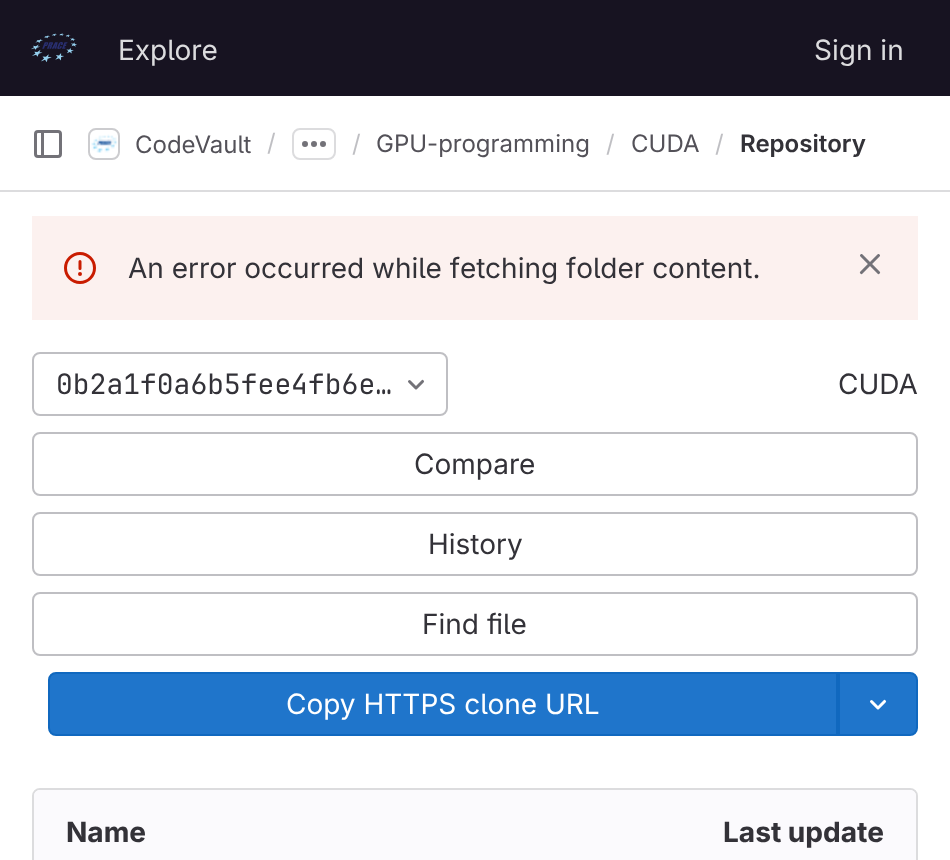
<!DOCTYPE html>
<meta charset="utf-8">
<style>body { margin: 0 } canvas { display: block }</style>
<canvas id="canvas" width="950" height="860"></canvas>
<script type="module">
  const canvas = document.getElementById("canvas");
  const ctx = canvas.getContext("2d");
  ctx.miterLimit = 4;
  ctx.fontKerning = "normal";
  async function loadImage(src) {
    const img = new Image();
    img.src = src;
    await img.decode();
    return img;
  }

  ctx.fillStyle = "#ffffff";
  ctx.fillRect(0, 0, 950, 860);
  ctx.fillStyle = "#171321";
  ctx.fillRect(0, 0, 950, 96);
  ctx.drawImage(await loadImage("img1.png"), 31, 33, 46, 29);
  ctx.font = "28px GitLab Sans";
  ctx.fillStyle = "#dcdcde";
  ctx.fillText("Explore", 118, 60);
  ctx.fillText("Sign in", 814, 60);
  ctx.fillRect(0, 190, 950, 2);
  ctx.drawImage(await loadImage("img2.png"), 34, 130, 28, 28);
  ctx.beginPath();
  ctx.roundRect(89, 129, 30, 30, 7);
  ctx.strokeStyle = "#dcdcde";
  ctx.lineWidth = 2;
  ctx.stroke();
  ctx.drawImage(await loadImage("img3.png"), 91, 134, 27, 19);
  ctx.beginPath();
  ctx.roundRect(89, 129, 30, 30, 7);
  ctx.strokeStyle = "rgba(31, 30, 36, 0.08)";
  ctx.stroke();
  ctx.font = "24px GitLab Sans";
  ctx.fillStyle = "#535158";
  ctx.fillText("CodeVault", 135, 153);
  ctx.fillStyle = "#bfbfc3";
  ctx.fillText("/", 267, 151);
  ctx.beginPath();
  ctx.roundRect(293, 129, 42, 30, 7);
  ctx.strokeStyle = "#dcdcde";
  ctx.stroke();
  ctx.drawImage(await loadImage("img4.png"), 302, 141, 24, 6);
  ctx.fillText("/", 352, 152);
  ctx.fillStyle = "#535158";
  ctx.fillText("GPU-programming", 376, 152);
  ctx.fillStyle = "#bfbfc3";
  ctx.fillText("/", 606, 152);
  ctx.fillStyle = "#535158";
  ctx.fillText("CUDA", 631, 152);
  ctx.fillStyle = "#bfbfc3";
  ctx.fillText("/", 715, 152);
  ctx.font = "600 24px GitLab Sans";
  ctx.fillStyle = "#333238";
  ctx.fillText("Repository", 740, 152);
  ctx.fillStyle = "#fcf1ef";
  ctx.fillRect(32, 216, 886, 104);
  ctx.drawImage(await loadImage("img5.png"), 64, 252, 32, 32);
  ctx.font = "28px GitLab Sans";
  ctx.fillStyle = "#333238";
  ctx.fillText("An error occurred while fetching folder content.", 128, 278);
  ctx.drawImage(await loadImage("img6.png"), 859, 254, 22, 21);
  ctx.beginPath();
  ctx.roundRect(33, 353, 414, 62, 7);
  ctx.strokeStyle = "#bfbfc3";
  ctx.stroke();
  ctx.font = "28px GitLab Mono";
  ctx.fillText("0b2a1f0a6b5fee4fb6e…", 56, 394);
  ctx.drawImage(await loadImage("img7.png"), 408, 379, 16, 11);
  ctx.font = "28px GitLab Sans";
  ctx.fillText("CUDA", 838, 394);
  ctx.beginPath();
  ctx.roundRect(33, 433, 884, 62, 7);
  ctx.stroke();
  ctx.fillText("Compare", 414, 474);
  ctx.beginPath();
  ctx.roundRect(33, 513, 884, 62, 7);
  ctx.stroke();
  ctx.fillText("History", 428, 554);
  ctx.beginPath();
  ctx.roundRect(33, 593, 884, 62, 7);
  ctx.stroke();
  ctx.fillText("Find file", 422, 634);
  ctx.fillStyle = "#1f75cb";
  ctx.beginPath();
  ctx.roundRect(49, 673, 788, 62, [7, 0, 0, 7]);
  ctx.fill();
  ctx.strokeStyle = "#1068bf";
  ctx.stroke();
  ctx.fillStyle = "#ffffff";
  ctx.fillText("Copy HTTPS clone URL", 286, 714);
  ctx.fillStyle = "#1f75cb";
  ctx.beginPath();
  ctx.roundRect(839, 673, 78, 62, [0, 7, 7, 0]);
  ctx.fill();
  ctx.stroke();
  ctx.drawImage(await loadImage("img8.png"), 870, 699, 17, 11);
  ctx.beginPath();
  ctx.roundRect(33, 789, 884, 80, 7);
  ctx.strokeStyle = "#dcdcde";
  ctx.stroke();
  ctx.fillStyle = "#fbfafd";
  ctx.beginPath();
  ctx.moveTo(40, 790);
  ctx.lineTo(476, 790);
  ctx.lineTo(476, 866);
  ctx.lineTo(40, 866);
  ctx.bezierCurveTo(36.5, 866, 34, 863.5, 34, 860);
  ctx.lineTo(34, 796);
  ctx.bezierCurveTo(34, 792.5, 36.5, 790, 40, 790);
  ctx.closePath();
  ctx.fill();
  ctx.font = "bold 28px GitLab Sans";
  ctx.fillStyle = "#333238";
  ctx.fillText("Name", 66, 842);
  ctx.fillStyle = "#fbfafd";
  ctx.beginPath();
  ctx.moveTo(476, 790);
  ctx.lineTo(910, 790);
  ctx.bezierCurveTo(913.5, 790, 916, 792.5, 916, 796);
  ctx.lineTo(916, 860);
  ctx.bezierCurveTo(916, 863.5, 913.5, 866, 910, 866);
  ctx.lineTo(476, 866);
  ctx.closePath();
  ctx.fill();
  ctx.fillStyle = "#333238";
  ctx.fillText("Last update", 723, 842);
</script>
